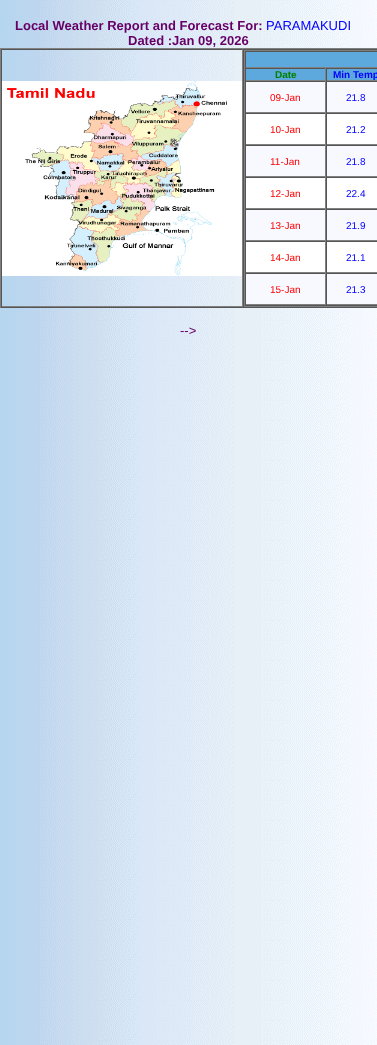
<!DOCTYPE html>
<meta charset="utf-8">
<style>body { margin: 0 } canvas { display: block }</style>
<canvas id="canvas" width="377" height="1045"></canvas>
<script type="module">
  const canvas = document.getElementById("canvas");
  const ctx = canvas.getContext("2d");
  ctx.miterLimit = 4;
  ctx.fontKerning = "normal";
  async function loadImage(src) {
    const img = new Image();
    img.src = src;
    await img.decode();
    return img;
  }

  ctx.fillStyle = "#ffffff";
  ctx.fillRect(0, 0, 377, 1045);
  ctx.drawImage(await loadImage("img1.png"), 0, 0, 377, 1045);
  ctx.font = "bold 13px Liberation Sans";
  ctx.fillStyle = "#660066";
  ctx.fillText("Local Weather Report and Forecast For:", 15, 30);
  ctx.font = "13px Liberation Sans";
  ctx.fillStyle = "#0000ff";
  ctx.fillText("PARAMAKUDI", 266, 30);
  ctx.font = "bold 13px Liberation Sans";
  ctx.fillStyle = "#660066";
  ctx.fillText("Dated :Jan 09, 2026", 128, 45);
  ctx.fillStyle = "#808080";
  ctx.fillRect(0, 48, 377, 1);
  ctx.fillStyle = "#555555";
  ctx.fillRect(0, 307, 377, 1);
  ctx.fillStyle = "#808080";
  ctx.fillRect(0, 48, 1, 260);
  ctx.fillStyle = "#555555";
  ctx.fillRect(1, 49, 376, 1);
  ctx.fillStyle = "#808080";
  ctx.fillRect(242, 49, 1, 258);
  ctx.fillRect(1, 306, 376, 1);
  ctx.fillStyle = "#555555";
  ctx.fillRect(1, 49, 1, 258);
  ctx.drawImage(await loadImage("img2.png"), 2, 81, 240, 195);
  ctx.fillRect(243, 49, 1, 258);
  ctx.fillStyle = "#808080";
  ctx.fillRect(244, 50, 133, 1);
  ctx.fillStyle = "#555555";
  ctx.fillRect(244, 305, 133, 1);
  ctx.fillStyle = "#808080";
  ctx.fillRect(244, 50, 1, 256);
  ctx.fillStyle = "#5da9dd";
  ctx.fillRect(246, 52, 131, 15);
  ctx.fillStyle = "#555555";
  ctx.fillRect(245, 51, 132, 1);
  ctx.fillStyle = "#808080";
  ctx.fillRect(245, 67, 132, 1);
  ctx.fillStyle = "#555555";
  ctx.fillRect(245, 51, 1, 17);
  ctx.fillStyle = "#5da9dd";
  ctx.fillRect(246, 69, 79, 11);
  ctx.fillStyle = "#555555";
  ctx.fillRect(245, 68, 132, 1);
  ctx.fillStyle = "#808080";
  ctx.fillRect(325, 68, 1, 13);
  ctx.fillRect(245, 80, 132, 1);
  ctx.fillStyle = "#555555";
  ctx.fillRect(245, 68, 1, 13);
  ctx.font = "bold 10px Liberation Sans";
  ctx.fillStyle = "#008000";
  ctx.fillText("Date", 275, 78);
  ctx.fillStyle = "#5da9dd";
  ctx.fillRect(327, 69, 50, 11);
  ctx.fillStyle = "#555555";
  ctx.fillRect(326, 68, 1, 13);
  ctx.fillStyle = "#0000ff";
  ctx.fillText("Min Temp", 333, 78);
  ctx.fillStyle = "#f8f8ff";
  ctx.fillRect(246, 82, 131, 30);
  ctx.fillStyle = "#555555";
  ctx.fillRect(245, 81, 132, 1);
  ctx.fillStyle = "#808080";
  ctx.fillRect(325, 81, 1, 32);
  ctx.fillRect(245, 112, 132, 1);
  ctx.fillStyle = "#555555";
  ctx.fillRect(245, 81, 1, 32);
  ctx.font = "10px Liberation Sans";
  ctx.fillStyle = "#ff0000";
  ctx.fillText("09-Jan", 270, 101);
  ctx.fillStyle = "#555555";
  ctx.fillRect(326, 81, 1, 32);
  ctx.fillStyle = "#0000ff";
  ctx.fillText("21.8", 346, 101);
  ctx.fillStyle = "#ffffff";
  ctx.fillRect(246, 114, 131, 30);
  ctx.fillStyle = "#555555";
  ctx.fillRect(245, 113, 132, 1);
  ctx.fillStyle = "#808080";
  ctx.fillRect(325, 113, 1, 32);
  ctx.fillRect(245, 144, 132, 1);
  ctx.fillStyle = "#555555";
  ctx.fillRect(245, 113, 1, 32);
  ctx.fillStyle = "#ff0000";
  ctx.fillText("10-Jan", 270, 133);
  ctx.fillStyle = "#555555";
  ctx.fillRect(326, 113, 1, 32);
  ctx.fillStyle = "#0000ff";
  ctx.fillText("21.2", 346, 133);
  ctx.fillStyle = "#f8f8ff";
  ctx.fillRect(246, 146, 131, 30);
  ctx.fillStyle = "#555555";
  ctx.fillRect(245, 145, 132, 1);
  ctx.fillStyle = "#808080";
  ctx.fillRect(325, 145, 1, 32);
  ctx.fillRect(245, 176, 132, 1);
  ctx.fillStyle = "#555555";
  ctx.fillRect(245, 145, 1, 32);
  ctx.fillStyle = "#ff0000";
  ctx.fillText("11-Jan", 270, 165);
  ctx.fillStyle = "#555555";
  ctx.fillRect(326, 145, 1, 32);
  ctx.fillStyle = "#0000ff";
  ctx.fillText("21.8", 346, 165);
  ctx.fillStyle = "#ffffff";
  ctx.fillRect(246, 178, 131, 30);
  ctx.fillStyle = "#555555";
  ctx.fillRect(245, 177, 132, 1);
  ctx.fillStyle = "#808080";
  ctx.fillRect(325, 177, 1, 32);
  ctx.fillRect(245, 208, 132, 1);
  ctx.fillStyle = "#555555";
  ctx.fillRect(245, 177, 1, 32);
  ctx.fillStyle = "#ff0000";
  ctx.fillText("12-Jan", 270, 197);
  ctx.fillStyle = "#555555";
  ctx.fillRect(326, 177, 1, 32);
  ctx.fillStyle = "#0000ff";
  ctx.fillText("22.4", 346, 197);
  ctx.fillStyle = "#f8f8ff";
  ctx.fillRect(246, 210, 131, 30);
  ctx.fillStyle = "#555555";
  ctx.fillRect(245, 209, 132, 1);
  ctx.fillStyle = "#808080";
  ctx.fillRect(325, 209, 1, 32);
  ctx.fillRect(245, 240, 132, 1);
  ctx.fillStyle = "#555555";
  ctx.fillRect(245, 209, 1, 32);
  ctx.fillStyle = "#ff0000";
  ctx.fillText("13-Jan", 270, 229);
  ctx.fillStyle = "#555555";
  ctx.fillRect(326, 209, 1, 32);
  ctx.fillStyle = "#0000ff";
  ctx.fillText("21.9", 346, 229);
  ctx.fillStyle = "#ffffff";
  ctx.fillRect(246, 242, 131, 30);
  ctx.fillStyle = "#555555";
  ctx.fillRect(245, 241, 132, 1);
  ctx.fillStyle = "#808080";
  ctx.fillRect(325, 241, 1, 32);
  ctx.fillRect(245, 272, 132, 1);
  ctx.fillStyle = "#555555";
  ctx.fillRect(245, 241, 1, 32);
  ctx.fillStyle = "#ff0000";
  ctx.fillText("14-Jan", 270, 261);
  ctx.fillStyle = "#555555";
  ctx.fillRect(326, 241, 1, 32);
  ctx.fillStyle = "#0000ff";
  ctx.fillText("21.1", 346, 261);
  ctx.fillStyle = "#f8f8ff";
  ctx.fillRect(246, 274, 131, 30);
  ctx.fillStyle = "#555555";
  ctx.fillRect(245, 273, 132, 1);
  ctx.fillStyle = "#808080";
  ctx.fillRect(325, 273, 1, 32);
  ctx.fillRect(245, 304, 132, 1);
  ctx.fillStyle = "#555555";
  ctx.fillRect(245, 273, 1, 32);
  ctx.fillStyle = "#ff0000";
  ctx.fillText("15-Jan", 270, 293);
  ctx.fillStyle = "#555555";
  ctx.fillRect(326, 273, 1, 32);
  ctx.fillStyle = "#0000ff";
  ctx.fillText("21.3", 346, 293);
  ctx.font = "13px Liberation Sans";
  ctx.fillStyle = "#660066";
  ctx.fillText("-->", 180, 335);
</script>
